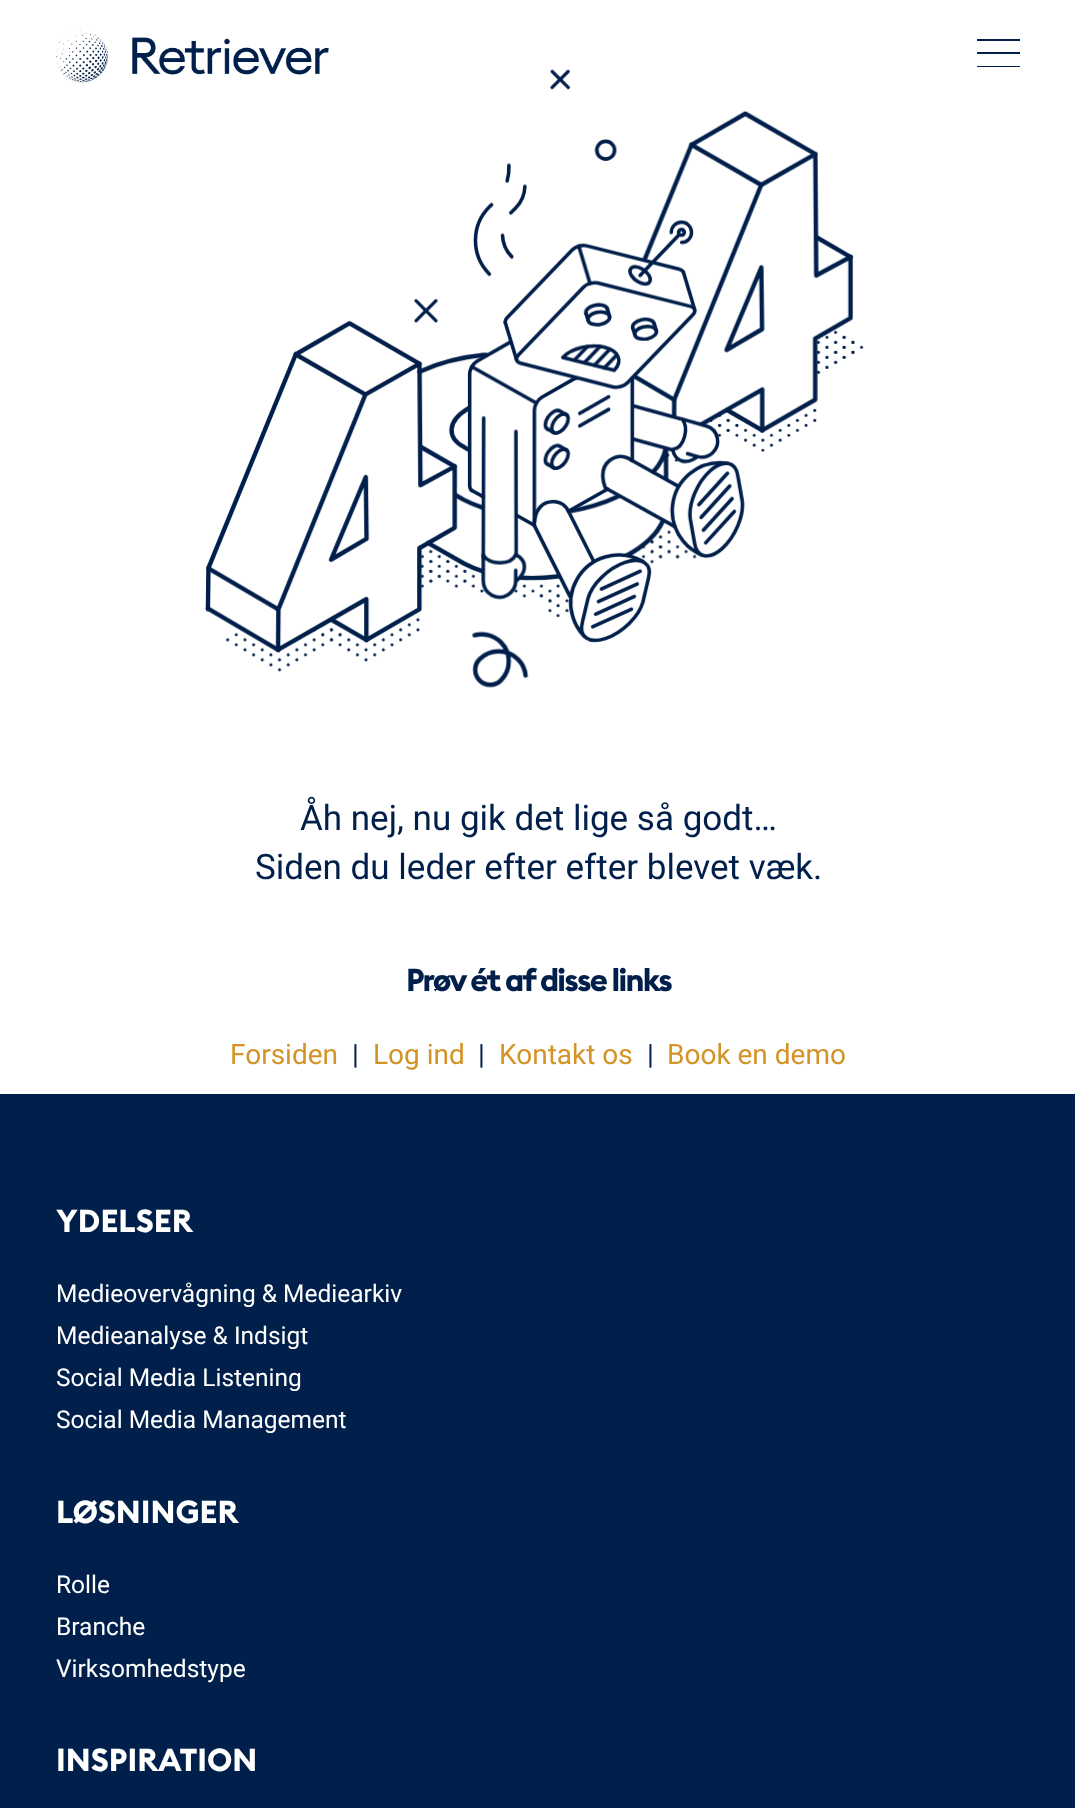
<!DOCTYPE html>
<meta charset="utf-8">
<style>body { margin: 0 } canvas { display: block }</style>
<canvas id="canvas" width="1075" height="1808"></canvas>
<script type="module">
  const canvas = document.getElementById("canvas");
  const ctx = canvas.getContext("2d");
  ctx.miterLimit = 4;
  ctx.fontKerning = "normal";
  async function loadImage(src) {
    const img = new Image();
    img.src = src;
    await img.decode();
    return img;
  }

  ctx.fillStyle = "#ffffff";
  ctx.fillRect(0, 0, 1075, 1808);
  ctx.drawImage(await loadImage("img2.png"), 205, 69, 659, 619);
  ctx.drawImage(await loadImage("img1.png"), 56, 29, 273, 54);
  ctx.save();
  ctx.beginPath();
  ctx.rect(977, 32, 43, 43);
  ctx.clip();
  ctx.fillStyle = "#001f4a";
  ctx.beginPath();
  ctx.moveTo(976, 39);
  ctx.lineTo(976, 41);
  ctx.lineTo(1020, 41);
  ctx.lineTo(1020, 39);
  ctx.closePath();
  ctx.moveTo(976, 52);
  ctx.lineTo(976, 54);
  ctx.lineTo(1020, 54);
  ctx.lineTo(1020, 52);
  ctx.closePath();
  ctx.moveTo(976, 66);
  ctx.lineTo(976, 67);
  ctx.lineTo(1020, 67);
  ctx.lineTo(1020, 66);
  ctx.closePath();
  ctx.fill();
  ctx.restore();
  ctx.font = "35px Roboto";
  ctx.fillStyle = "#001f4a";
  ctx.fillText("Åh nej, nu gik det lige så godt…", 300, 830);
  ctx.fillText("Siden du leder efter efter blevet væk.", 255, 879);
  ctx.letterSpacing = "-1.75px";
  ctx.font = "bold 31.5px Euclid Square";
  ctx.fillText("Prøv ét af disse links", 406, 991);
  ctx.letterSpacing = "0px";
  ctx.font = "28px Roboto";
  ctx.fillStyle = "#d39327";
  ctx.fillText("Forsiden", 230, 1064);
  ctx.fillStyle = "#001f4a";
  ctx.fillText("|", 352, 1064);
  ctx.fillStyle = "#d39327";
  ctx.fillText("Log ind", 373, 1064);
  ctx.fillStyle = "#001f4a";
  ctx.fillText("|", 478, 1064);
  ctx.fillStyle = "#d39327";
  ctx.fillText("Kontakt os", 499, 1064);
  ctx.fillStyle = "#001f4a";
  ctx.fillText("|", 647, 1064);
  ctx.fillStyle = "#d39327";
  ctx.fillText("Book en demo", 667, 1064);
  ctx.fillStyle = "#001f4a";
  ctx.fillRect(0, 1094, 1075, 714);
  ctx.font = "bold 31.5px Euclid Square";
  ctx.fillStyle = "#ffffff";
  ctx.fillText("YDELSER", 56, 1232);
  ctx.font = "24.5px Roboto";
  ctx.fillText("Medieovervågning & Mediearkiv", 56, 1302);
  ctx.fillText("Medieanalyse & Indsigt", 56, 1344);
  ctx.fillText("Social Media Listening", 56, 1386);
  ctx.fillText("Social Media Management", 56, 1428);
  ctx.font = "bold 31.5px Euclid Square";
  ctx.fillText("LØSNINGER", 56, 1523);
  ctx.font = "24.5px Roboto";
  ctx.fillText("Rolle", 56, 1593);
  ctx.fillText("Branche", 56, 1635);
  ctx.fillText("Virksomhedstype", 56, 1677);
  ctx.font = "bold 31.5px Euclid Square";
  ctx.fillText("INSPIRATION", 56, 1771);
</script>
